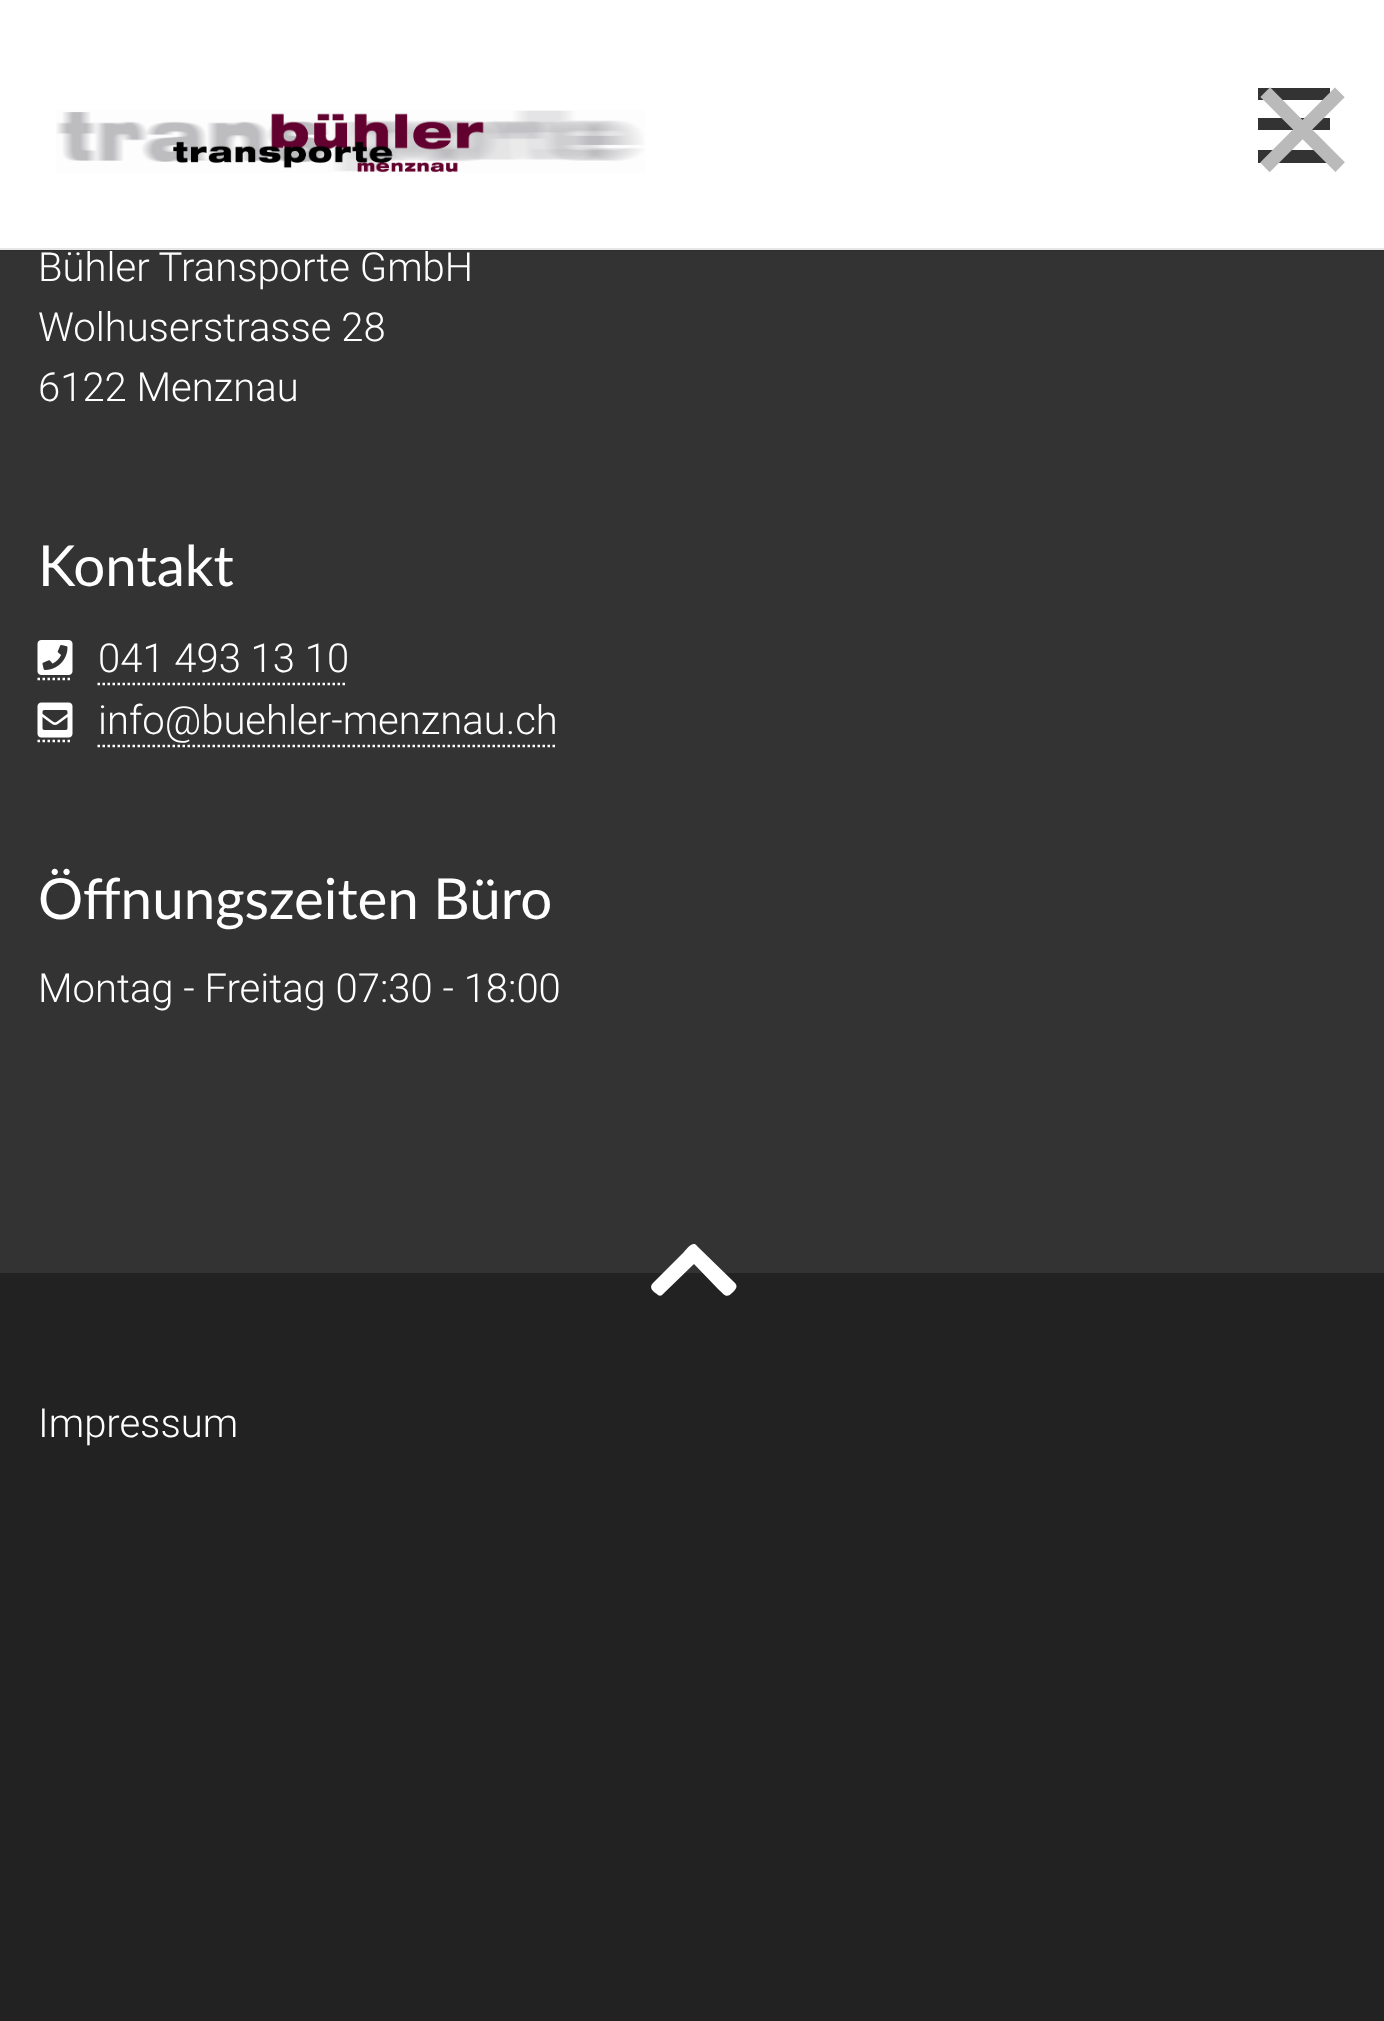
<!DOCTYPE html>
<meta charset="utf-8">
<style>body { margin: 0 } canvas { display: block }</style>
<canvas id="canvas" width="1384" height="2021"></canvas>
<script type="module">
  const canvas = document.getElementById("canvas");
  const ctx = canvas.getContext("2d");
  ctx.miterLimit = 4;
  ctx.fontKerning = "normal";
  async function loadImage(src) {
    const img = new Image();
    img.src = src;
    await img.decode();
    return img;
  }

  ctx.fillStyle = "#222222";
  ctx.fillRect(0, 0, 1384, 2021);
  ctx.fillStyle = "#ffffff";
  ctx.fillRect(0, 0, 1384, 248);
  ctx.fillStyle = "#e6e6e6";
  ctx.fillRect(0, 248, 1384, 2);
  ctx.drawImage(await loadImage("img1.png"), 56, 110, 589, 63);
  ctx.fillStyle = "#333333";
  ctx.fillRect(1258, 88, 72, 12);
  ctx.fillRect(1258, 118, 72, 12);
  ctx.fillRect(1258, 150, 72, 13);
  ctx.font = "190px Liberation Sans";
  ctx.fillStyle = "#bababa";
  ctx.fillText("×", 1247, 193);
  ctx.fillStyle = "#333333";
  ctx.fillRect(0, 251, 1384, 1022);
  ctx.fillStyle = "#2e2e2e";
  ctx.fillRect(0, 250, 1384, 1);
  ctx.font = "300 40px Roboto";
  ctx.fillStyle = "#ffffff";
  ctx.fillText("Bühler Transporte GmbH", 38, 281);
  ctx.fillText("Wolhuserstrasse 28", 38, 341);
  ctx.fillText("6122 Menznau", 38, 401);
  ctx.font = "56.5px Lato";
  ctx.fillText("Kontakt", 38, 586);
  ctx.drawImage(await loadImage("img2.png"), 37, 640, 36, 35);
  ctx.font = "300 40px Roboto";
  ctx.fillText("041 493 13 10", 98, 672);
  ctx.beginPath();
  ctx.moveTo(37.5, 679);
  ctx.lineTo(72.5, 679);
  ctx.strokeStyle = "#ffffff";
  ctx.lineWidth = 2.5;
  ctx.setLineDash([2.5, 2.5]);
  ctx.stroke();
  ctx.beginPath();
  ctx.moveTo(97.5, 684);
  ctx.lineTo(347.5, 684);
  ctx.stroke();
  ctx.drawImage(await loadImage("img3.png"), 37, 702, 36, 36);
  ctx.fillText("info@buehler-menznau.ch", 98, 734);
  ctx.beginPath();
  ctx.moveTo(37.5, 741);
  ctx.lineTo(72.5, 741);
  ctx.stroke();
  ctx.beginPath();
  ctx.moveTo(97.5, 746);
  ctx.lineTo(557.5, 746);
  ctx.stroke();
  ctx.font = "56.5px Lato";
  ctx.fillText("Öffnungszeiten Büro", 38, 919);
  ctx.font = "300 40px Roboto";
  ctx.fillText("Montag - Freitag 07:30 - 18:00", 38, 1002);
  ctx.beginPath();
  ctx.moveTo(697, 1246);
  ctx.lineTo(735, 1283);
  ctx.bezierCurveTo(739, 1287, 734, 1291, 732, 1293);
  ctx.bezierCurveTo(726, 1299, 724, 1294, 719, 1290);
  ctx.lineTo(694, 1264);
  ctx.lineTo(662, 1295);
  ctx.bezierCurveTo(661, 1296, 658, 1296, 657, 1294);
  ctx.bezierCurveTo(654, 1292, 648, 1288, 653, 1283);
  ctx.lineTo(684, 1252);
  ctx.bezierCurveTo(686, 1250, 693, 1240, 697, 1246);
  ctx.closePath();
  ctx.fill();
  ctx.fillText("Impressum", 38, 1437);
</script>
